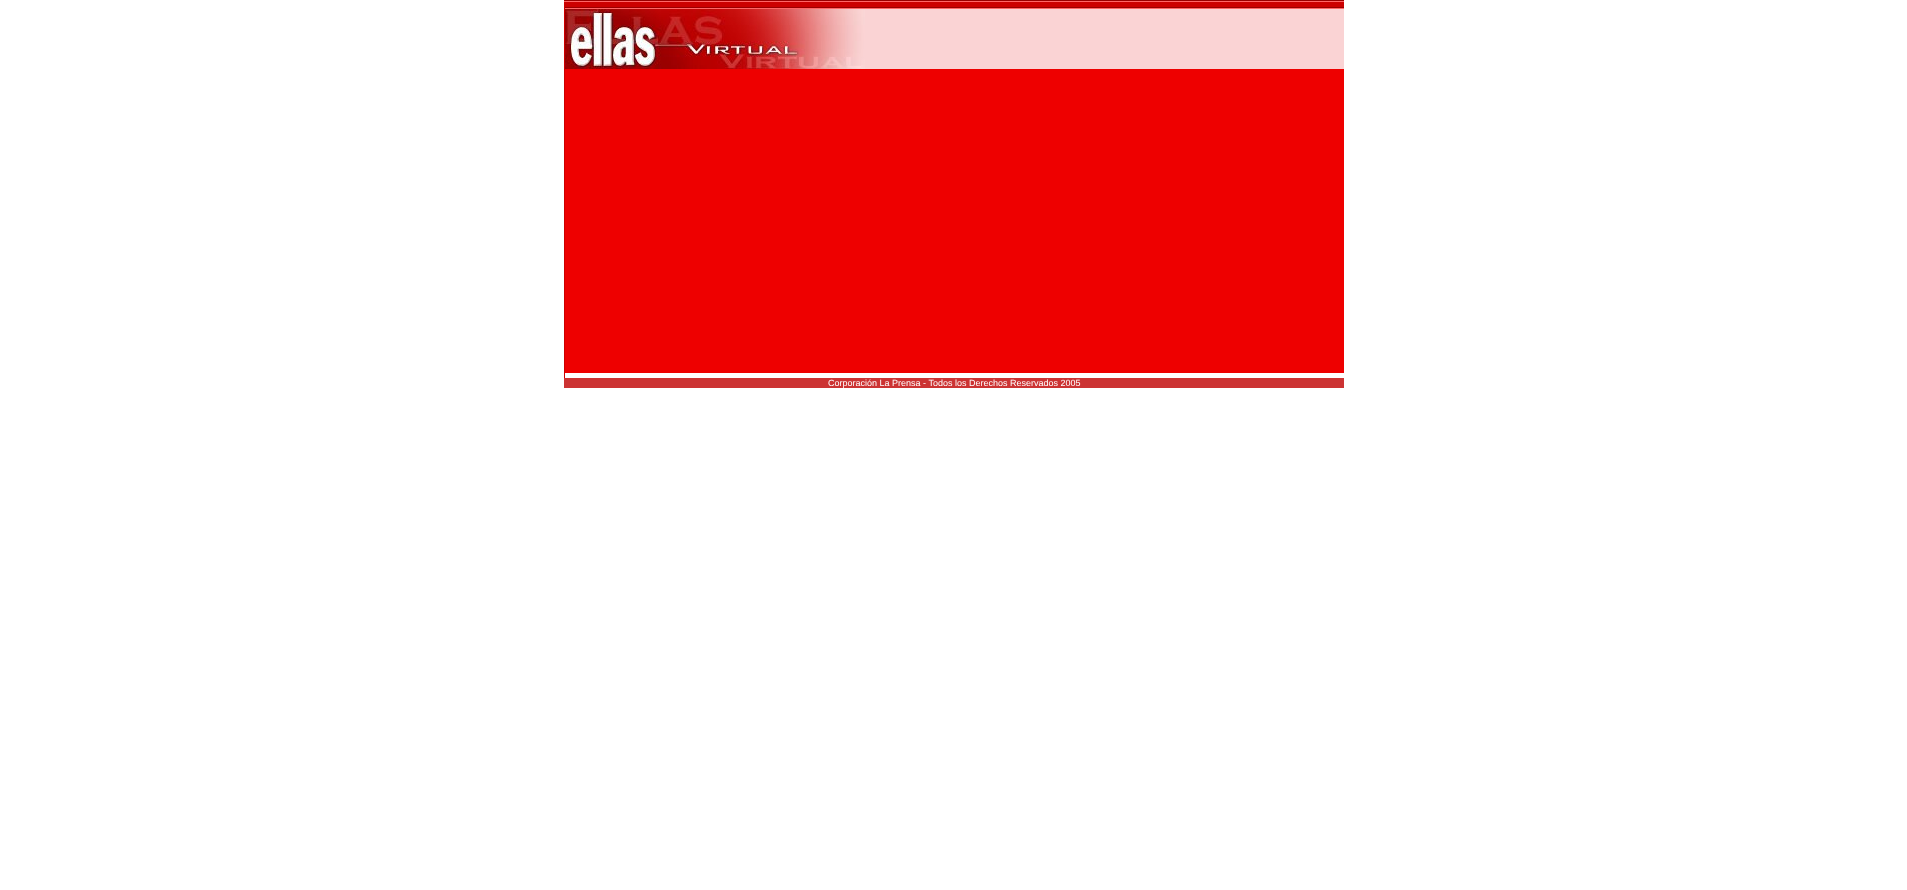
<!DOCTYPE html>
<meta charset="utf-8">
<style>body { margin: 0 } canvas { display: block }</style>
<canvas id="canvas" width="1907" height="890"></canvas>
<script type="module">
  const canvas = document.getElementById("canvas");
  const ctx = canvas.getContext("2d");
  ctx.miterLimit = 4;
  ctx.fontKerning = "normal";
  async function loadImage(src) {
    const img = new Image();
    img.src = src;
    await img.decode();
    return img;
  }

  ctx.fillStyle = "#ffffff";
  ctx.fillRect(0, 0, 1907, 890);
  ctx.fillStyle = "#990000";
  ctx.fillRect(564, 0, 780, 1);
  ctx.fillStyle = "#ff6666";
  ctx.fillRect(564, 1, 780, 1);
  ctx.fillStyle = "#cc0000";
  ctx.fillRect(564, 2, 1, 376);
  ctx.fillRect(565, 2, 779, 5);
  ctx.fillStyle = "#990000";
  ctx.fillRect(565, 7, 779, 1);
  ctx.fillStyle = "#ff6666";
  ctx.fillRect(565, 8, 779, 1);
  ctx.fillStyle = "#ee0000";
  ctx.fillRect(565, 69, 779, 304);
  ctx.drawImage(await loadImage("img1.png"), 565, 9, 300, 60);
  ctx.fillStyle = "#fad3d4";
  ctx.fillRect(865, 9, 479, 60);
  ctx.fillStyle = "#cc3333";
  ctx.fillRect(564, 378, 780, 10);
  ctx.font = "9px Liberation Sans";
  ctx.fillStyle = "#ffffff";
  ctx.fillText("Corporación La Prensa - Todos los Derechos Reservados 2005", 828, 386);
</script>
